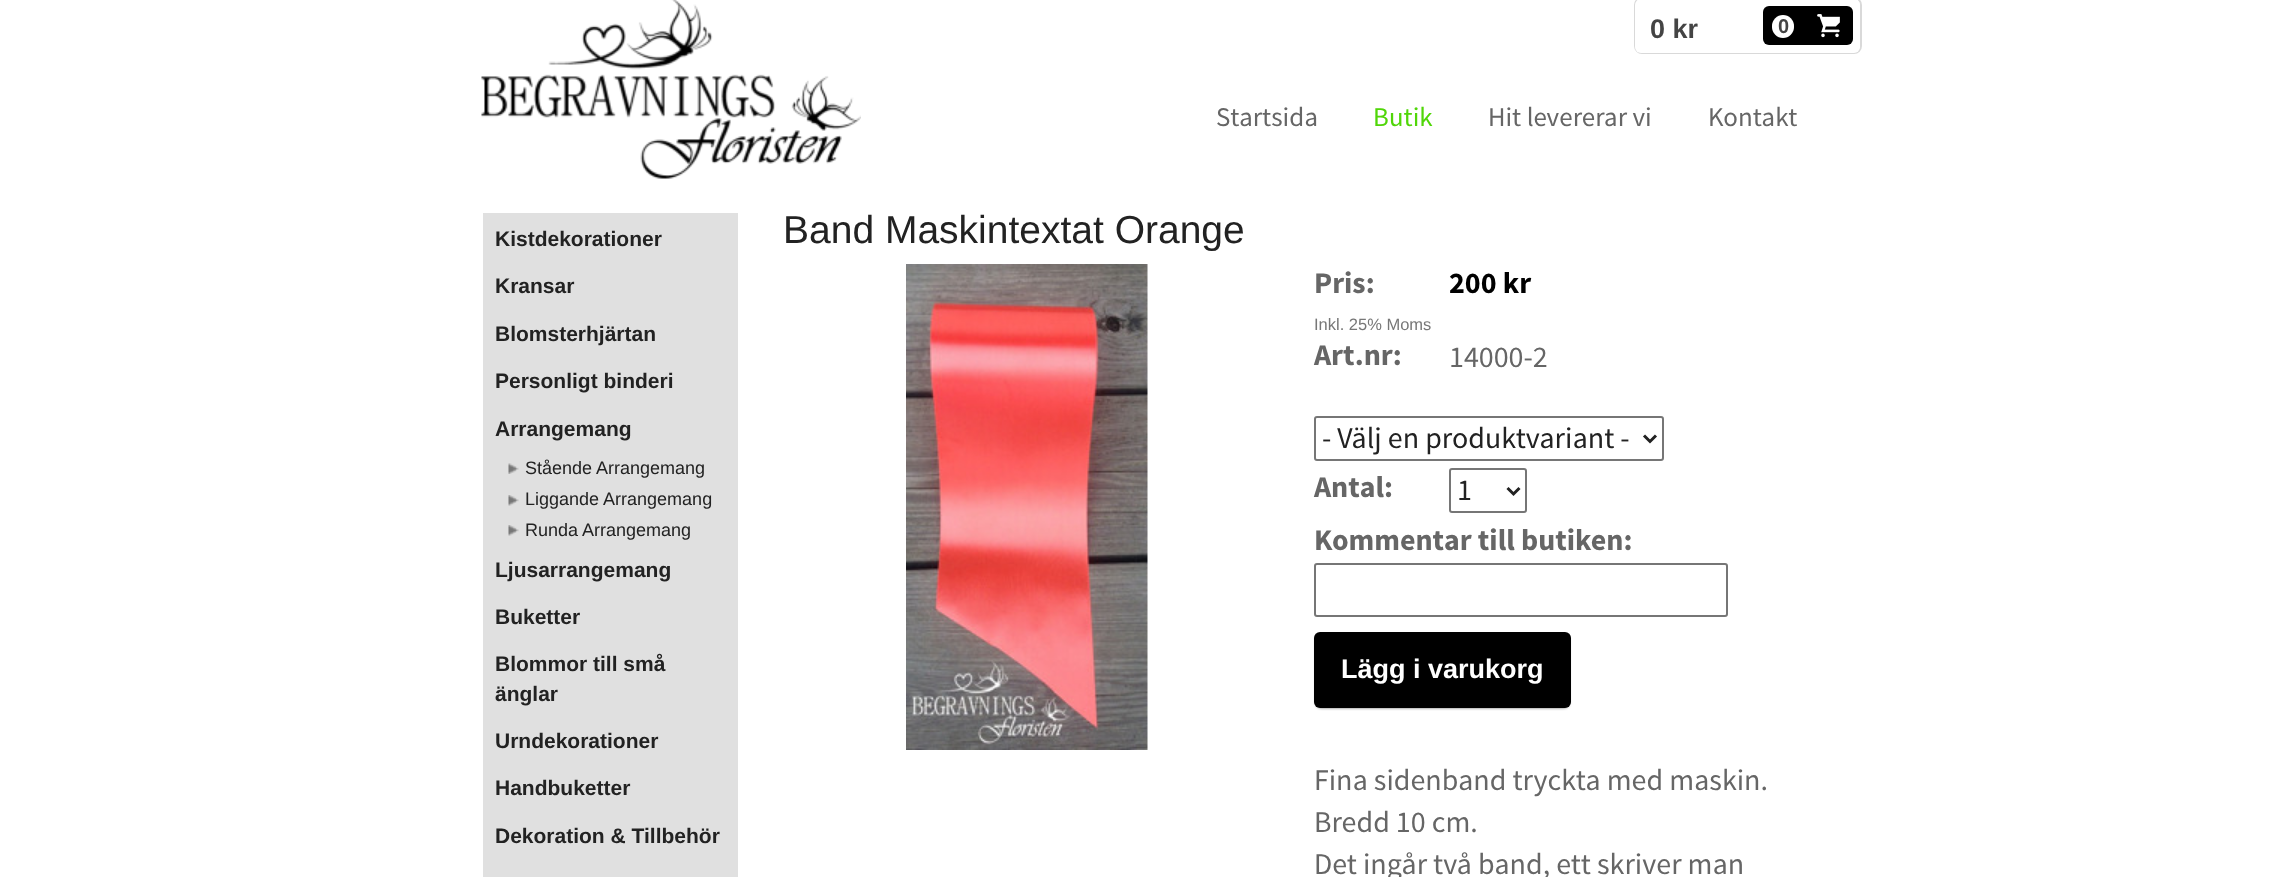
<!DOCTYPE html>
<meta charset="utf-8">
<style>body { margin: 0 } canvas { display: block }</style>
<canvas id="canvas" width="2279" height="877"></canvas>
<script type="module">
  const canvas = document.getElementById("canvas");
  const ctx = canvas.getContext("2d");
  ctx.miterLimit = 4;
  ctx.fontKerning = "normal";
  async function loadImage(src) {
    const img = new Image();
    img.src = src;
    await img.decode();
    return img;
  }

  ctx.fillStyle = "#ffffff";
  ctx.fillRect(0, 0, 2279, 877);
  ctx.drawImage(await loadImage("img1.png"), 481, 0, 380, 179);
  ctx.beginPath();
  ctx.roundRect(1635, -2, 226, 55, 7);
  ctx.strokeStyle = "#d9d9d9";
  ctx.lineWidth = 2;
  ctx.stroke();
  ctx.beginPath();
  ctx.roundRect(1635, -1, 225, 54, 6);
  ctx.fill();
  ctx.font = "bold 27px Liberation Sans";
  ctx.fillStyle = "#444444";
  ctx.fillText("0 kr", 1650, 38);
  ctx.fillStyle = "#000000";
  ctx.beginPath();
  ctx.roundRect(1763, 6, 90, 39, 6);
  ctx.fill();
  ctx.fillStyle = "#ffffff";
  ctx.beginPath();
  ctx.roundRect(1772, 15, 22, 23, 11);
  ctx.fill();
  ctx.font = "bold 20px Liberation Sans";
  ctx.fillStyle = "#444444";
  ctx.fillText("0", 1778, 33);
  ctx.drawImage(await loadImage("img2.png"), 1817, 14, 23, 24);
  ctx.font = "27px Source Sans Pro";
  ctx.fillStyle = "#666666";
  ctx.fillText("Startsida", 1216, 126);
  ctx.fillStyle = "#50d608";
  ctx.fillText("Butik", 1373, 126);
  ctx.fillStyle = "#666666";
  ctx.fillText("Hit levererar vi", 1488, 126);
  ctx.fillText("Kontakt", 1708, 126);
  ctx.fillStyle = "#e0e0e0";
  ctx.fillRect(483, 213, 255, 664);
  ctx.font = "bold 21px Liberation Sans";
  ctx.fillStyle = "#222222";
  ctx.fillText("Kistdekorationer", 495, 246);
  ctx.fillText("Kransar", 495, 293);
  ctx.fillText("Blomsterhjärtan", 495, 341);
  ctx.fillText("Personligt binderi", 495, 388);
  ctx.fillText("Arrangemang", 495, 436);
  ctx.drawImage(await loadImage("img3.png"), 508, 463, 11, 11);
  ctx.font = "18px Liberation Sans";
  ctx.fillText("Stående Arrangemang", 525, 474);
  ctx.drawImage(await loadImage("img4.png"), 508, 495, 11, 11);
  ctx.fillText("Liggande Arrangemang", 525, 505);
  ctx.drawImage(await loadImage("img4.png"), 508, 525, 11, 11);
  ctx.fillText("Runda Arrangemang", 525, 536);
  ctx.font = "bold 21px Liberation Sans";
  ctx.fillText("Ljusarrangemang", 495, 577);
  ctx.fillText("Buketter", 495, 624);
  ctx.fillText("Blommor till små", 495, 671);
  ctx.fillText("änglar", 495, 701);
  ctx.fillText("Urndekorationer", 495, 748);
  ctx.fillText("Handbuketter", 495, 795);
  ctx.fillText("Dekoration & Tillbehör", 495, 843);
  ctx.font = "39px Liberation Sans";
  ctx.fillText("Band Maskintextat Orange", 783, 243);
  ctx.drawImage(await loadImage("img5.png"), 906, 264, 242, 486);
  ctx.font = "bold 30px Source Sans Pro";
  ctx.fillStyle = "#666666";
  ctx.fillText("Pris:", 1314, 293);
  ctx.fillStyle = "#000000";
  ctx.fillText("200 kr", 1449, 293);
  ctx.font = "16.5px Liberation Sans";
  ctx.fillStyle = "#777777";
  ctx.fillText("Inkl. 25% Moms", 1314, 330);
  ctx.font = "bold 30px Source Sans Pro";
  ctx.fillStyle = "#666666";
  ctx.fillText("Art.nr:", 1314, 365);
  ctx.font = "30px Source Sans Pro";
  ctx.fillText("14000-2", 1449, 367);
  ctx.beginPath();
  ctx.roundRect(1315, 417, 348, 43, 2);
  ctx.strokeStyle = "#767676";
  ctx.stroke();
  ctx.beginPath();
  ctx.moveTo(1644, 435.5);
  ctx.lineTo(1650, 441.5);
  ctx.lineTo(1656, 435.5);
  ctx.strokeStyle = "#222222";
  ctx.lineWidth = 3;
  ctx.stroke();
  ctx.fillStyle = "#222222";
  ctx.fillText("- Välj en produktvariant -", 1322, 448);
  ctx.font = "bold 30px Source Sans Pro";
  ctx.fillStyle = "#666666";
  ctx.fillText("Antal:", 1314, 497);
  ctx.beginPath();
  ctx.roundRect(1450, 469, 76, 43, 2);
  ctx.strokeStyle = "#767676";
  ctx.lineWidth = 2;
  ctx.stroke();
  ctx.beginPath();
  ctx.moveTo(1507.5, 488);
  ctx.lineTo(1513.5, 494);
  ctx.lineTo(1519.5, 488);
  ctx.strokeStyle = "#222222";
  ctx.lineWidth = 3;
  ctx.stroke();
  ctx.font = "30px Source Sans Pro";
  ctx.fillStyle = "#222222";
  ctx.fillText("1", 1457, 500);
  ctx.font = "bold 30px Source Sans Pro";
  ctx.fillStyle = "#666666";
  ctx.fillText("Kommentar till butiken:", 1314, 550);
  ctx.beginPath();
  ctx.roundRect(1315, 564, 412, 52, 2);
  ctx.strokeStyle = "#767676";
  ctx.lineWidth = 2;
  ctx.stroke();
  ctx.fillStyle = "rgba(0, 0, 0, 0.6)";
  ctx.filter = "blur(1.5px)";
  ctx.beginPath();
  ctx.roundRect(1316, 635, 253, 73, 5);
  ctx.fill();
  ctx.filter = "none";
  ctx.fillStyle = "#000000";
  ctx.beginPath();
  ctx.roundRect(1314, 632, 257, 76, 6);
  ctx.fill();
  ctx.font = "bold 27px Liberation Sans";
  ctx.fillStyle = "#ffffff";
  ctx.fillText("Lägg i varukorg", 1341, 678);
  ctx.font = "30px Source Sans Pro";
  ctx.fillStyle = "#666666";
  ctx.fillText("Fina sidenband tryckta med maskin.", 1314, 790);
  ctx.fillText("Bredd 10 cm.", 1314, 832);
  ctx.fillText("Det ingår två band, ett skriver man", 1314, 874);
</script>
